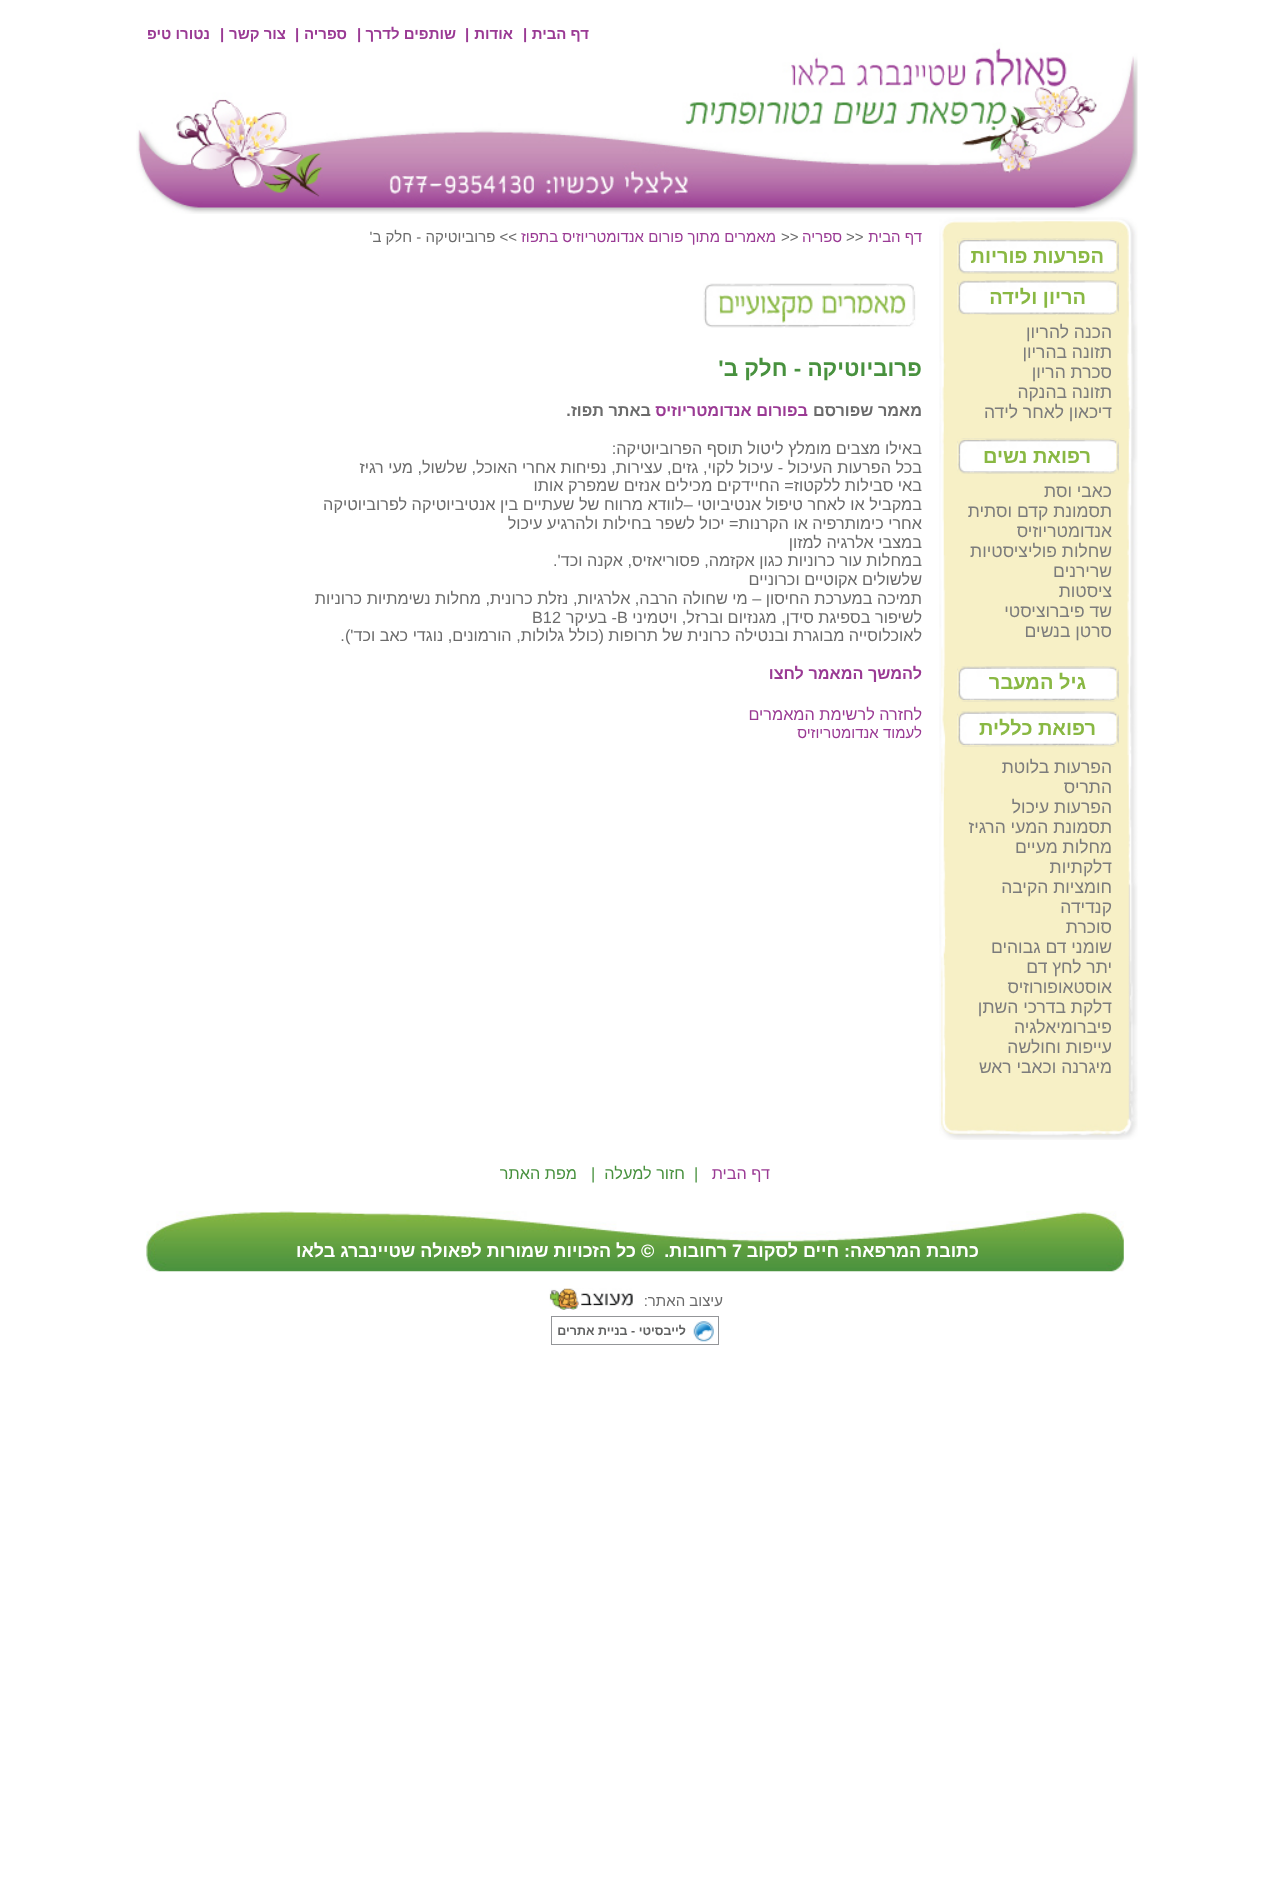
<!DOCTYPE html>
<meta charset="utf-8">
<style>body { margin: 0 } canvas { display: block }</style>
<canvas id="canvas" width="1270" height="1902"></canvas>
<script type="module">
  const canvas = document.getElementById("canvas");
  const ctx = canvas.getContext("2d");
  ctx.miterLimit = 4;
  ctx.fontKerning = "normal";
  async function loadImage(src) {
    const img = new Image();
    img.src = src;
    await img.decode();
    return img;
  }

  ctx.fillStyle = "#ffffff";
  ctx.fillRect(0, 0, 1270, 1902);
  ctx.direction = "rtl";
  ctx.font = "bold 15px Liberation Sans";
  ctx.fillStyle = "#9a3a94";
  ctx.fillText("דף הבית", 589, 39);
  ctx.direction = "ltr";
  ctx.fillText("|", 523, 39);
  ctx.direction = "rtl";
  ctx.fillText("אודות", 513, 39);
  ctx.direction = "ltr";
  ctx.fillText("|", 465, 39);
  ctx.direction = "rtl";
  ctx.fillText("שותפים לדרך", 456, 39);
  ctx.direction = "ltr";
  ctx.fillText("|", 357, 39);
  ctx.direction = "rtl";
  ctx.fillText("ספריה", 347, 39);
  ctx.direction = "ltr";
  ctx.fillText("|", 295, 39);
  ctx.direction = "rtl";
  ctx.fillText("צור קשר", 286, 39);
  ctx.direction = "ltr";
  ctx.fillText("|", 220, 39);
  ctx.direction = "rtl";
  ctx.fillText("נטורו טיפ", 210, 39);
  ctx.drawImage(await loadImage("img1.png"), 136, 42, 1002, 172);
  ctx.drawImage(await loadImage("img2.png"), 939, 217, 199, 923);
  ctx.drawImage(await loadImage("img3.png"), 957, 238, 162, 36);
  ctx.font = "bold 20px Liberation Sans";
  ctx.fillStyle = "#89b843";
  ctx.fillText("הפרעות פוריות", 1104, 263);
  ctx.drawImage(await loadImage("img4.png"), 957, 280, 162, 35);
  ctx.fillText("הריון ולידה", 1086, 304);
  ctx.font = "17.5px Liberation Sans";
  ctx.fillStyle = "#7c7c7c";
  ctx.fillText("הכנה להריון", 1112, 338);
  ctx.fillText("תזונה בהריון", 1112, 358);
  ctx.fillText("סכרת הריון", 1112, 378);
  ctx.fillText("תזונה בהנקה", 1112, 398);
  ctx.fillText("דיכאון לאחר לידה", 1112, 418);
  ctx.drawImage(await loadImage("img3.png"), 957, 438, 162, 36);
  ctx.font = "bold 20px Liberation Sans";
  ctx.fillStyle = "#89b843";
  ctx.fillText("רפואת נשים", 1091, 463);
  ctx.font = "17.5px Liberation Sans";
  ctx.fillStyle = "#7c7c7c";
  ctx.fillText("כאבי וסת", 1112, 497);
  ctx.fillText("תסמונת קדם וסתית", 1112, 517);
  ctx.fillText("אנדומטריוזיס", 1112, 537);
  ctx.fillText("שחלות פוליציסטיות", 1112, 557);
  ctx.fillText("שרירנים", 1112, 577);
  ctx.fillText("ציסטות", 1112, 597);
  ctx.fillText("שד פיברוציסטי", 1112, 617);
  ctx.fillText("סרטן בנשים", 1112, 637);
  ctx.drawImage(await loadImage("img5.png"), 957, 666, 162, 36);
  ctx.font = "bold 20px Liberation Sans";
  ctx.fillStyle = "#89b843";
  ctx.fillText("גיל המעבר", 1086, 689);
  ctx.drawImage(await loadImage("img5.png"), 957, 711, 162, 36);
  ctx.fillText("רפואת כללית", 1096, 735);
  ctx.font = "17.5px Liberation Sans";
  ctx.fillStyle = "#7c7c7c";
  ctx.fillText("הפרעות בלוטת", 1112, 773);
  ctx.fillText("התריס", 1112, 793);
  ctx.fillText("הפרעות עיכול", 1112, 813);
  ctx.fillText("תסמונת המעי הרגיז", 1112, 833);
  ctx.fillText("מחלות מעיים", 1112, 853);
  ctx.fillText("דלקתיות", 1112, 873);
  ctx.fillText("חומציות הקיבה", 1112, 893);
  ctx.fillText("קנדידה", 1112, 913);
  ctx.fillText("סוכרת", 1112, 933);
  ctx.fillText("שומני דם גבוהים", 1112, 953);
  ctx.fillText("יתר לחץ דם", 1112, 973);
  ctx.fillText("אוסטאופורוזיס", 1112, 993);
  ctx.fillText("דלקת בדרכי השתן", 1112, 1013);
  ctx.fillText("פיברומיאלגיה", 1112, 1033);
  ctx.fillText("עייפות וחולשה", 1112, 1053);
  ctx.fillText("מיגרנה וכאבי ראש", 1112, 1073);
  ctx.font = "15px Liberation Sans";
  ctx.fillStyle = "#9a3a94";
  ctx.fillText("דף הבית", 922, 242);
  ctx.direction = "ltr";
  ctx.fillStyle = "#6b6b6b";
  ctx.fillText(">>", 846, 242);
  ctx.direction = "rtl";
  ctx.fillStyle = "#9a3a94";
  ctx.fillText("ספריה", 842, 242);
  ctx.direction = "ltr";
  ctx.fillStyle = "#6b6b6b";
  ctx.fillText(">>", 781, 242);
  ctx.direction = "rtl";
  ctx.fillStyle = "#9a3a94";
  ctx.fillText("מאמרים מתוך פורום אנדומטריוזיס בתפוז", 776, 242);
  ctx.fillStyle = "#6b6b6b";
  ctx.fillText(">> פרוביוטיקה - חלק ב'", 517, 242);
  ctx.drawImage(await loadImage("img6.png"), 703, 283, 213, 45);
  ctx.font = "bold 22.5px Liberation Sans";
  ctx.fillStyle = "#48913e";
  ctx.fillText("פרוביוטיקה - חלק ב'", 922, 376);
  ctx.font = "bold 16.25px Liberation Sans";
  ctx.fillStyle = "#6b6b6b";
  ctx.fillText("מאמר שפורסם", 922, 416);
  ctx.fillStyle = "#9a3a94";
  ctx.fillText("בפורום אנדומטריוזיס", 808, 416);
  ctx.fillStyle = "#6b6b6b";
  ctx.fillText("באתר תפוז.", 651, 416);
  ctx.font = "16.25px Liberation Sans";
  ctx.fillText("באילו מצבים מומלץ ליטול תוסף הפרוביוטיקה:", 922, 454);
  ctx.fillText("בכל הפרעות העיכול - עיכול לקוי, גזים, עצירות, נפיחות אחרי האוכל, שלשול, מעי רגיז", 922, 473);
  ctx.fillText("באי סבילות ללקטוז= החיידקים מכילים אנזים שמפרק אותו", 922, 491);
  ctx.fillText("במקביל או לאחר טיפול אנטיביוטי –לוודא מרווח של שעתיים בין אנטיביוטיקה לפרוביוטיקה", 922, 510);
  ctx.fillText("אחרי כימותרפיה או הקרנות= יכול לשפר בחילות ולהרגיע עיכול", 922, 529);
  ctx.fillText("במצבי אלרגיה למזון", 922, 548);
  ctx.fillText("במחלות עור כרוניות כגון אקזמה, פסוריאזיס, אקנה וכד'.", 922, 566);
  ctx.fillText("שלשולים אקוטיים וכרוניים", 922, 585);
  ctx.fillText("תמיכה במערכת החיסון – מי שחולה הרבה, אלרגיות, נזלת כרונית, מחלות נשימתיות כרוניות", 922, 604);
  ctx.fillText("לשיפור בספיגת סידן, מגנזיום וברזל, ויטמיני", 922, 623);
  ctx.direction = "ltr";
  ctx.fillText("B", 617, 623);
  ctx.direction = "rtl";
  ctx.fillText("- בעיקר", 617, 623);
  ctx.direction = "ltr";
  ctx.fillText("B12", 532, 623);
  ctx.direction = "rtl";
  ctx.fillText("לאוכלוסייה מבוגרת ובנטילה כרונית של תרופות (כולל גלולות, הורמונים, נוגדי כאב וכד').", 922, 641);
  ctx.font = "bold 16.25px Liberation Sans";
  ctx.fillStyle = "#9a3a94";
  ctx.fillText("להמשך המאמר לחצו", 922, 679);
  ctx.font = "16.25px Liberation Sans";
  ctx.fillText("לחזרה לרשימת המאמרים", 922, 720);
  ctx.font = "15px Liberation Sans";
  ctx.fillText("לעמוד אנדומטריוזיס", 922, 738);
  ctx.font = "16.25px Liberation Sans";
  ctx.fillText("דף הבית", 770, 1179);
  ctx.direction = "ltr";
  ctx.fillStyle = "#48913e";
  ctx.fillText("|", 694, 1179);
  ctx.direction = "rtl";
  ctx.fillText("חזור למעלה  |", 685, 1179);
  ctx.fillText("מפת האתר", 577, 1179);
  ctx.drawImage(await loadImage("img7.png"), 146, 1211, 978, 61);
  ctx.font = "bold 18px Liberation Sans";
  ctx.fillStyle = "#ffffff";
  ctx.fillText("כתובת המרפאה: חיים לסקוב", 979, 1257);
  ctx.direction = "ltr";
  ctx.fillText("7", 732, 1257);
  ctx.direction = "rtl";
  ctx.fillText("רחובות.  © כל הזכויות שמורות לפאולה שטיינברג בלאו", 727, 1257);
  ctx.font = "15px Liberation Sans";
  ctx.fillStyle = "#6b6b6b";
  ctx.fillText("עיצוב האתר:", 723, 1306);
  ctx.drawImage(await loadImage("img8.png"), 549, 1288, 84, 22);
  ctx.drawImage(await loadImage("img9.png"), 693, 1321, 21, 21);
  ctx.strokeStyle = "#939598";
  ctx.strokeRect(551.5, 1316.5, 167, 28);
  ctx.font = "bold 12.5px Liberation Sans";
  ctx.fillStyle = "#616262";
  ctx.fillText("לייבסיטי - בניית אתרים", 686, 1335);
</script>
